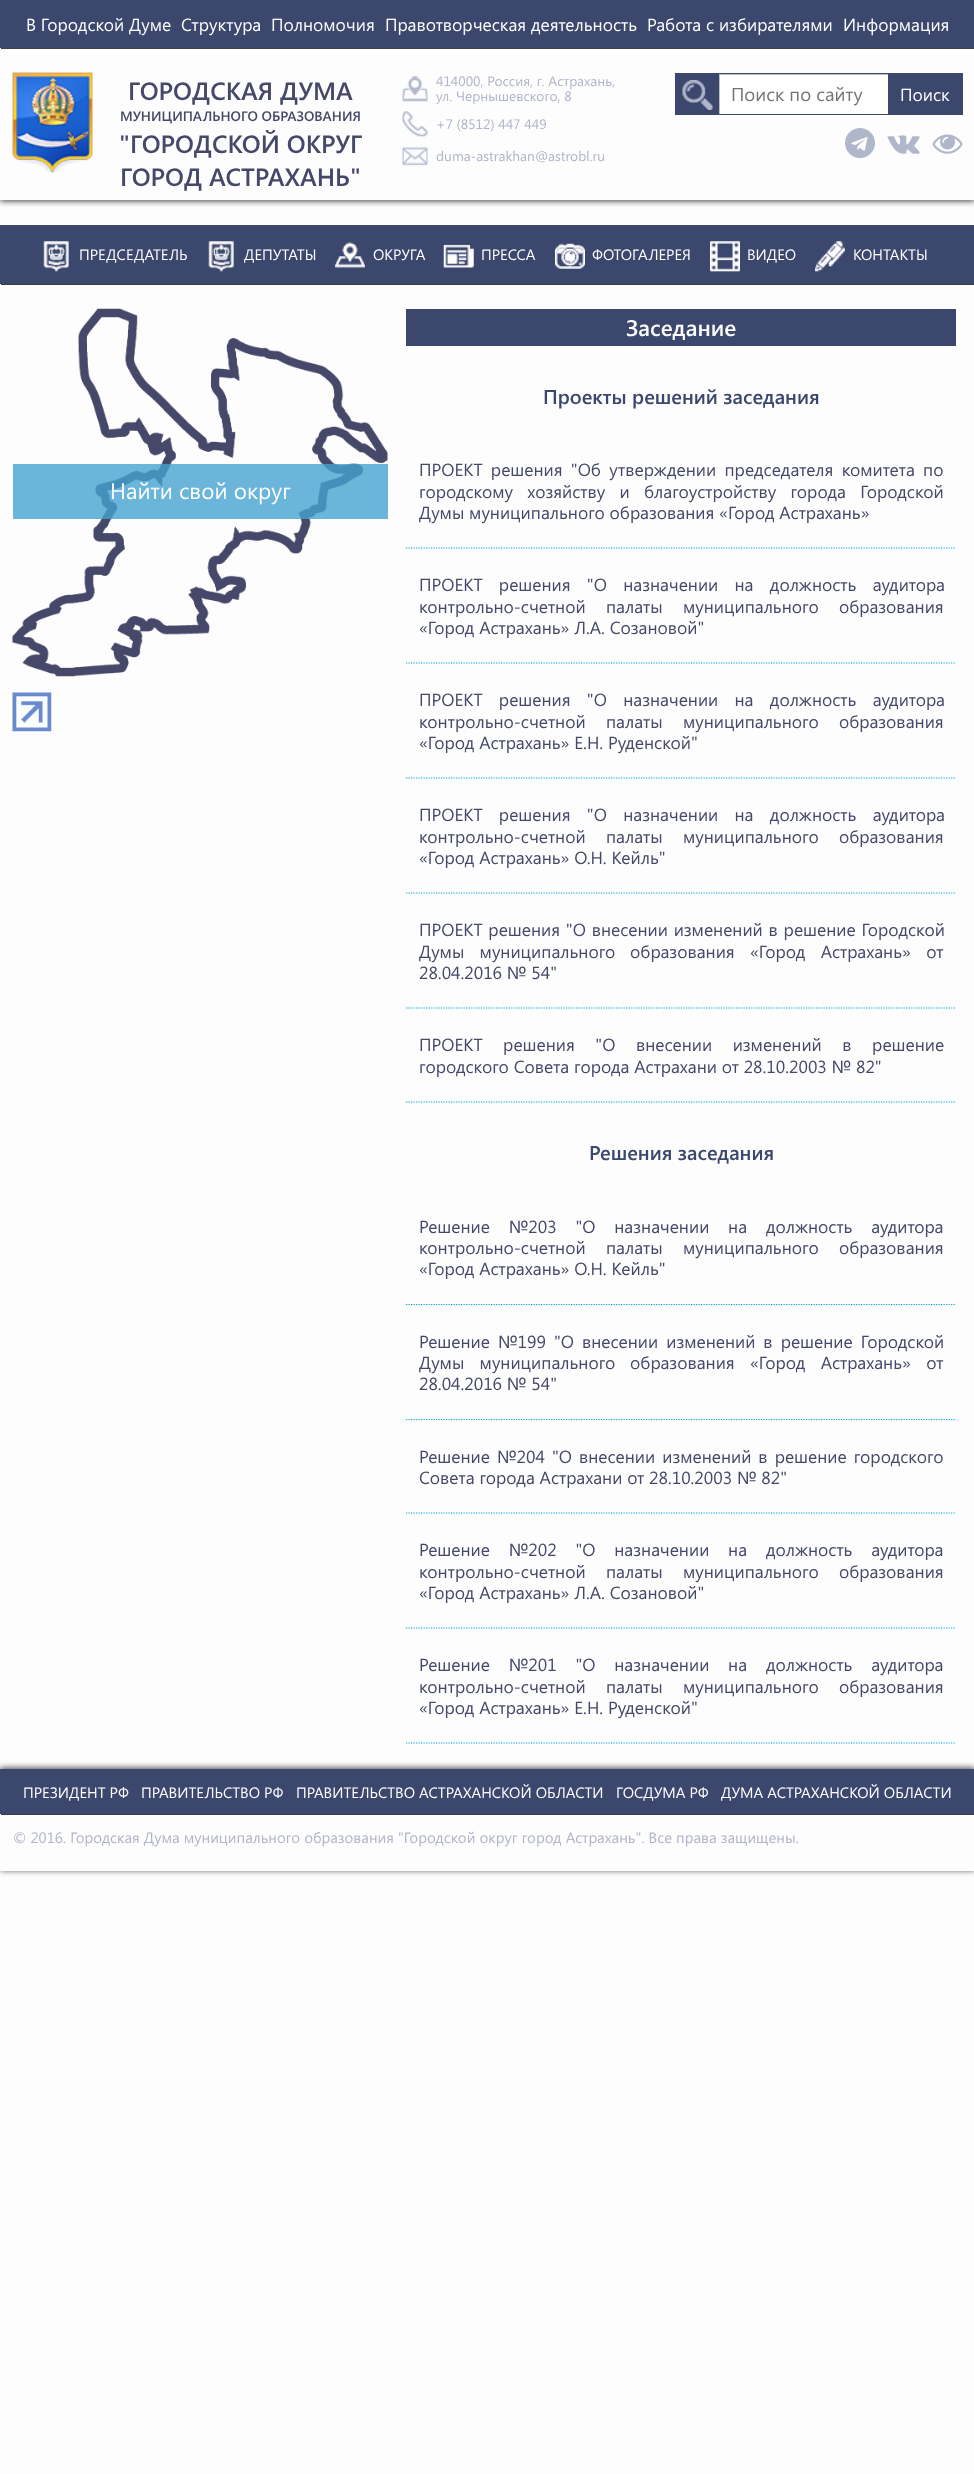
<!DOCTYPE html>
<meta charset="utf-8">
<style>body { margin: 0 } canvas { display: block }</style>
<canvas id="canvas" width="974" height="2474"></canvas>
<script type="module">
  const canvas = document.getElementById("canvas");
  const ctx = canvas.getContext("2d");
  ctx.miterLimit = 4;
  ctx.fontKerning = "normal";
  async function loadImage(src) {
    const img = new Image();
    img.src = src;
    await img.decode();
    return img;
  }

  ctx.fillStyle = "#fdfdfd";
  ctx.fillRect(0, 0, 974, 2474);
  ctx.save();
  ctx.beginPath();
  ctx.rect(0, 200, 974, 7);
  ctx.clip();
  ctx.fillStyle = "rgba(0, 0, 0, 0.75)";
  ctx.filter = "blur(3px)";
  ctx.beginPath();
  ctx.rect(0, 1, 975, 200);
  ctx.fill();
  ctx.filter = "none";
  ctx.restore();
  ctx.fillStyle = "rgba(0, 0, 0, 0.75)";
  ctx.filter = "blur(0.5px)";
  ctx.beginPath();
  ctx.rect(1, 1, 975, 48);
  ctx.fill();
  ctx.filter = "none";
  ctx.fillStyle = "#3b476d";
  ctx.fillRect(0, 0, 974, 48);
  ctx.font = "17.5px Segoe UI";
  ctx.fillStyle = "#fdfdfd";
  ctx.fillText("В Городской Думе", 26, 31);
  ctx.fillText("Структура", 181, 31);
  ctx.fillText("Полномочия", 271, 31);
  ctx.fillText("Правотворческая деятельность", 385, 31);
  ctx.fillText("Работа с избирателями", 647, 31);
  ctx.fillText("Информация", 843, 31);
  ctx.drawImage(await loadImage("img1.png"), 12, 72, 81, 101);
  ctx.font = "600 25px Segoe UI";
  ctx.fillStyle = "#454869";
  ctx.fillText("ГОРОДСКАЯ ДУМА", 128, 100);
  ctx.font = "600 13.75px Segoe UI";
  ctx.fillText("МУНИЦИПАЛЬНОГО ОБРАЗОВАНИЯ", 120, 121);
  ctx.font = "600 25px Segoe UI";
  ctx.fillText("\"ГОРОДСКОЙ ОКРУГ", 119, 153);
  ctx.fillText("ГОРОД АСТРАХАНЬ\"", 120, 186);
  ctx.drawImage(await loadImage("img2.png"), 402, 76, 26, 26);
  ctx.font = "13.75px Segoe UI";
  ctx.fillStyle = "#b0b5c7";
  ctx.fillText("414000, Россия, г. Астрахань,", 436, 86);
  ctx.fillText("ул. Чернышевского, 8", 436, 101);
  ctx.drawImage(await loadImage("img3.png"), 402, 111, 26, 26);
  ctx.fillText("+7 (8512) 447 449", 436, 129);
  ctx.drawImage(await loadImage("img4.png"), 402, 147, 26, 19);
  ctx.fillText("duma-astrakhan@astrobl.ru", 436, 161);
  ctx.fillStyle = "#3b476d";
  ctx.fillRect(675, 73, 213, 42);
  ctx.drawImage(await loadImage("img5.png"), 682, 80, 31, 30);
  ctx.fillStyle = "#ffffff";
  ctx.fillRect(720, 75, 168, 39);
  ctx.save();
  ctx.beginPath();
  ctx.rect(719, 74, 242, 40);
  ctx.clip();
  ctx.fillStyle = "#bfbfbf";
  ctx.beginPath();
  ctx.moveTo(595, -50);
  ctx.lineTo(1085, -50);
  ctx.lineTo(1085, 238);
  ctx.lineTo(595, 238);
  ctx.closePath();
  ctx.moveTo(720, 75);
  ctx.lineTo(962, 75);
  ctx.lineTo(962, 115);
  ctx.lineTo(720, 115);
  ctx.closePath();
  ctx.fill("evenodd");
  ctx.restore();
  ctx.font = "18.75px Segoe UI";
  ctx.fillStyle = "#757575";
  ctx.fillText("Поиск по сайту", 731, 101);
  ctx.fillStyle = "#3b476d";
  ctx.fillRect(888, 73, 75, 42);
  ctx.font = "17.5px Segoe UI";
  ctx.fillStyle = "#fdfdfd";
  ctx.fillText("Поиск", 900, 101);
  ctx.drawImage(await loadImage("img6.png"), 845, 128, 30, 30);
  ctx.drawImage(await loadImage("img7.png"), 887, 135, 33, 19);
  ctx.drawImage(await loadImage("img8.png"), 932, 134, 31, 20);
  ctx.fillStyle = "rgba(0, 0, 0, 0.75)";
  ctx.filter = "blur(0.5px)";
  ctx.beginPath();
  ctx.rect(1, 226, 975, 59);
  ctx.fill();
  ctx.filter = "none";
  ctx.fillStyle = "#3b476d";
  ctx.fillRect(0, 225, 974, 59);
  ctx.drawImage(await loadImage("img9.png"), 43, 241, 26, 31);
  ctx.font = "15px Segoe UI";
  ctx.fillStyle = "#fdfdfd";
  ctx.fillText("ПРЕДСЕДАТЕЛЬ", 79, 260);
  ctx.drawImage(await loadImage("img9.png"), 208, 241, 26, 31);
  ctx.fillText("ДЕПУТАТЫ", 244, 260);
  ctx.drawImage(await loadImage("img10.png"), 335, 242, 30, 26);
  ctx.fillText("ОКРУГА", 373, 260);
  ctx.drawImage(await loadImage("img11.png"), 443, 244, 31, 24);
  ctx.fillText("ПРЕССА", 481, 260);
  ctx.drawImage(await loadImage("img12.png"), 555, 243, 30, 26);
  ctx.fillText("ФОТОГАЛЕРЕЯ", 592, 260);
  ctx.drawImage(await loadImage("img13.png"), 710, 241, 30, 31);
  ctx.fillText("ВИДЕО", 747, 260);
  ctx.drawImage(await loadImage("img14.png"), 815, 241, 30, 31);
  ctx.fillText("КОНТАКТЫ", 853, 260);
  ctx.drawImage(await loadImage("img15.png"), 12, 308, 376, 369);
  ctx.fillStyle = "rgba(69, 163, 207, 0.8)";
  ctx.fillRect(13, 464, 375, 55);
  ctx.font = "22.5px Segoe UI";
  ctx.fillStyle = "#fdfdfd";
  ctx.fillText("Найти свой округ", 110, 499);
  ctx.drawImage(await loadImage("img16.png"), 12, 692, 40, 40);
  ctx.fillStyle = "#3b476d";
  ctx.fillRect(406, 309, 550, 37);
  ctx.font = "600 22.5px Segoe UI";
  ctx.fillStyle = "#fdfdfd";
  ctx.fillText("Заседание", 626, 336);
  ctx.font = "600 20px Segoe UI";
  ctx.fillStyle = "#3b476d";
  ctx.fillText("Проекты решений заседания", 543, 404);
  ctx.beginPath();
  ctx.moveTo(406, 548);
  ctx.lineTo(956, 548);
  ctx.strokeStyle = "#00abe3";
  ctx.lineWidth = 1.2;
  ctx.setLineDash([1.25, 1.25]);
  ctx.stroke();
  ctx.wordSpacing = "3.5px";
  ctx.font = "17.5px Segoe UI";
  ctx.fillStyle = "#454869";
  ctx.fillText("ПРОЕКТ решения \"Об утверждении председателя комитета по", 419, 476);
  ctx.wordSpacing = "9.5px";
  ctx.fillText("городскому хозяйству и благоустройству города Городской", 419, 498);
  ctx.wordSpacing = "0px";
  ctx.fillText("Думы муниципального образования «Город Астрахань»", 419, 519);
  ctx.beginPath();
  ctx.moveTo(406, 663);
  ctx.lineTo(956, 663);
  ctx.stroke();
  ctx.wordSpacing = "11.5px";
  ctx.fillText("ПРОЕКТ решения \"О назначении на должность аудитора", 419, 591);
  ctx.wordSpacing = "15.5px";
  ctx.fillText("контрольно-счетной палаты муниципального образования", 419, 613);
  ctx.wordSpacing = "0px";
  ctx.fillText("«Город Астрахань» Л.А. Созановой\"", 419, 634);
  ctx.beginPath();
  ctx.moveTo(406, 778);
  ctx.lineTo(956, 778);
  ctx.stroke();
  ctx.wordSpacing = "11.5px";
  ctx.fillText("ПРОЕКТ решения \"О назначении на должность аудитора", 419, 706);
  ctx.wordSpacing = "15.5px";
  ctx.fillText("контрольно-счетной палаты муниципального образования", 419, 728);
  ctx.wordSpacing = "0px";
  ctx.fillText("«Город Астрахань» Е.Н. Руденской\"", 419, 749);
  ctx.beginPath();
  ctx.moveTo(406, 893);
  ctx.lineTo(956, 893);
  ctx.stroke();
  ctx.wordSpacing = "11.5px";
  ctx.fillText("ПРОЕКТ решения \"О назначении на должность аудитора", 419, 821);
  ctx.wordSpacing = "15.5px";
  ctx.fillText("контрольно-счетной палаты муниципального образования", 419, 843);
  ctx.wordSpacing = "0px";
  ctx.fillText("«Город Астрахань» О.Н. Кейль\"", 419, 864);
  ctx.beginPath();
  ctx.moveTo(406, 1008);
  ctx.lineTo(956, 1008);
  ctx.stroke();
  ctx.wordSpacing = "1px";
  ctx.fillText("ПРОЕКТ решения \"О внесении изменений в решение Городской", 419, 936);
  ctx.wordSpacing = "10.5px";
  ctx.fillText("Думы муниципального", 419, 958);
  ctx.fillText("образования «Город Астрахань» от", 630, 958);
  ctx.wordSpacing = "0px";
  ctx.fillText("28.04.2016 № 54\"", 419, 979);
  ctx.beginPath();
  ctx.moveTo(406, 1102);
  ctx.lineTo(956, 1102);
  ctx.stroke();
  ctx.wordSpacing = "15.75px";
  ctx.fillText("ПРОЕКТ решения \"О внесении изменений в решение", 419, 1051);
  ctx.wordSpacing = "0px";
  ctx.fillText("городского Совета города Астрахани от 28.10.2003 № 82\"", 419, 1073);
  ctx.font = "600 20px Segoe UI";
  ctx.fillStyle = "#3b476d";
  ctx.fillText("Решения заседания", 589, 1160);
  ctx.save();
  ctx.beginPath();
  ctx.rect(406, 1190, 550, 115);
  ctx.clip();
  ctx.beginPath();
  ctx.moveTo(406, 1304.5);
  ctx.lineTo(956, 1304.5);
  ctx.stroke();
  ctx.restore();
  ctx.wordSpacing = "14px";
  ctx.font = "17.5px Segoe UI";
  ctx.fillStyle = "#454869";
  ctx.fillText("Решение №203 \"О назначении на должность аудитора", 419, 1233);
  ctx.wordSpacing = "15.5px";
  ctx.fillText("контрольно-счетной палаты муниципального образования", 419, 1254);
  ctx.wordSpacing = "0px";
  ctx.fillText("«Город Астрахань» О.Н. Кейль\"", 419, 1275);
  ctx.save();
  ctx.beginPath();
  ctx.rect(406, 1305, 550, 115);
  ctx.clip();
  ctx.beginPath();
  ctx.moveTo(406, 1419.5);
  ctx.lineTo(956, 1419.5);
  ctx.stroke();
  ctx.restore();
  ctx.wordSpacing = "3.25px";
  ctx.fillText("Решение №199 \"О внесении изменений в решение Городской", 419, 1348);
  ctx.wordSpacing = "10.5px";
  ctx.fillText("Думы муниципального", 419, 1369);
  ctx.fillText("образования «Город Астрахань» от", 630, 1369);
  ctx.wordSpacing = "0px";
  ctx.fillText("28.04.2016 № 54\"", 419, 1390);
  ctx.beginPath();
  ctx.moveTo(406, 1513);
  ctx.lineTo(956, 1513);
  ctx.stroke();
  ctx.wordSpacing = "2.25px";
  ctx.fillText("Решение №204 \"О внесении изменений в решение городского", 419, 1463);
  ctx.wordSpacing = "0px";
  ctx.fillText("Совета города Астрахани от 28.10.2003 № 82\"", 419, 1484);
  ctx.beginPath();
  ctx.moveTo(406, 1628);
  ctx.lineTo(956, 1628);
  ctx.stroke();
  ctx.wordSpacing = "14px";
  ctx.fillText("Решение №202 \"О назначении на должность аудитора", 419, 1556);
  ctx.wordSpacing = "15.5px";
  ctx.fillText("контрольно-счетной палаты муниципального образования", 419, 1578);
  ctx.wordSpacing = "0px";
  ctx.fillText("«Город Астрахань» Л.А. Созановой\"", 419, 1599);
  ctx.beginPath();
  ctx.moveTo(406, 1743);
  ctx.lineTo(956, 1743);
  ctx.stroke();
  ctx.wordSpacing = "14px";
  ctx.fillText("Решение №201 \"О назначении на должность аудитора", 419, 1671);
  ctx.wordSpacing = "15.5px";
  ctx.fillText("контрольно-счетной палаты муниципального образования", 419, 1693);
  ctx.wordSpacing = "0px";
  ctx.fillText("«Город Астрахань» Е.Н. Руденской\"", 419, 1714);
  ctx.save();
  ctx.beginPath();
  ctx.moveTo(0, 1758);
  ctx.lineTo(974, 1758);
  ctx.lineTo(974, 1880);
  ctx.lineTo(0, 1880);
  ctx.closePath();
  ctx.moveTo(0, 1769);
  ctx.lineTo(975, 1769);
  ctx.lineTo(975, 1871);
  ctx.lineTo(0, 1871);
  ctx.closePath();
  ctx.clip("evenodd");
  ctx.fillStyle = "rgba(0, 0, 0, 0.75)";
  ctx.filter = "blur(3px)";
  ctx.beginPath();
  ctx.rect(0, 1768, 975, 102);
  ctx.fill();
  ctx.filter = "none";
  ctx.restore();
  ctx.fillStyle = "rgba(0, 0, 0, 0.75)";
  ctx.filter = "blur(0.5px)";
  ctx.beginPath();
  ctx.rect(1, 1770, 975, 45);
  ctx.fill();
  ctx.filter = "none";
  ctx.fillStyle = "#3b476d";
  ctx.fillRect(0, 1769, 974, 45);
  ctx.font = "15px Segoe UI";
  ctx.fillStyle = "#fdfdfd";
  ctx.fillText("ПРЕЗИДЕНТ РФ", 23, 1798);
  ctx.fillText("ПРАВИТЕЛЬСТВО РФ", 141, 1798);
  ctx.fillText("ПРАВИТЕЛЬСТВО АСТРАХАНСКОЙ ОБЛАСТИ", 296, 1798);
  ctx.fillText("ГОСДУМА РФ", 616, 1798);
  ctx.fillText("ДУМА АСТРАХАНСКОЙ ОБЛАСТИ", 721, 1798);
  ctx.fillStyle = "#b0b5c7";
  ctx.fillText("© 2016. Городская Дума муниципального образования \"Городской округ город Астрахань\". Все права защищены.", 13, 1843);
</script>
